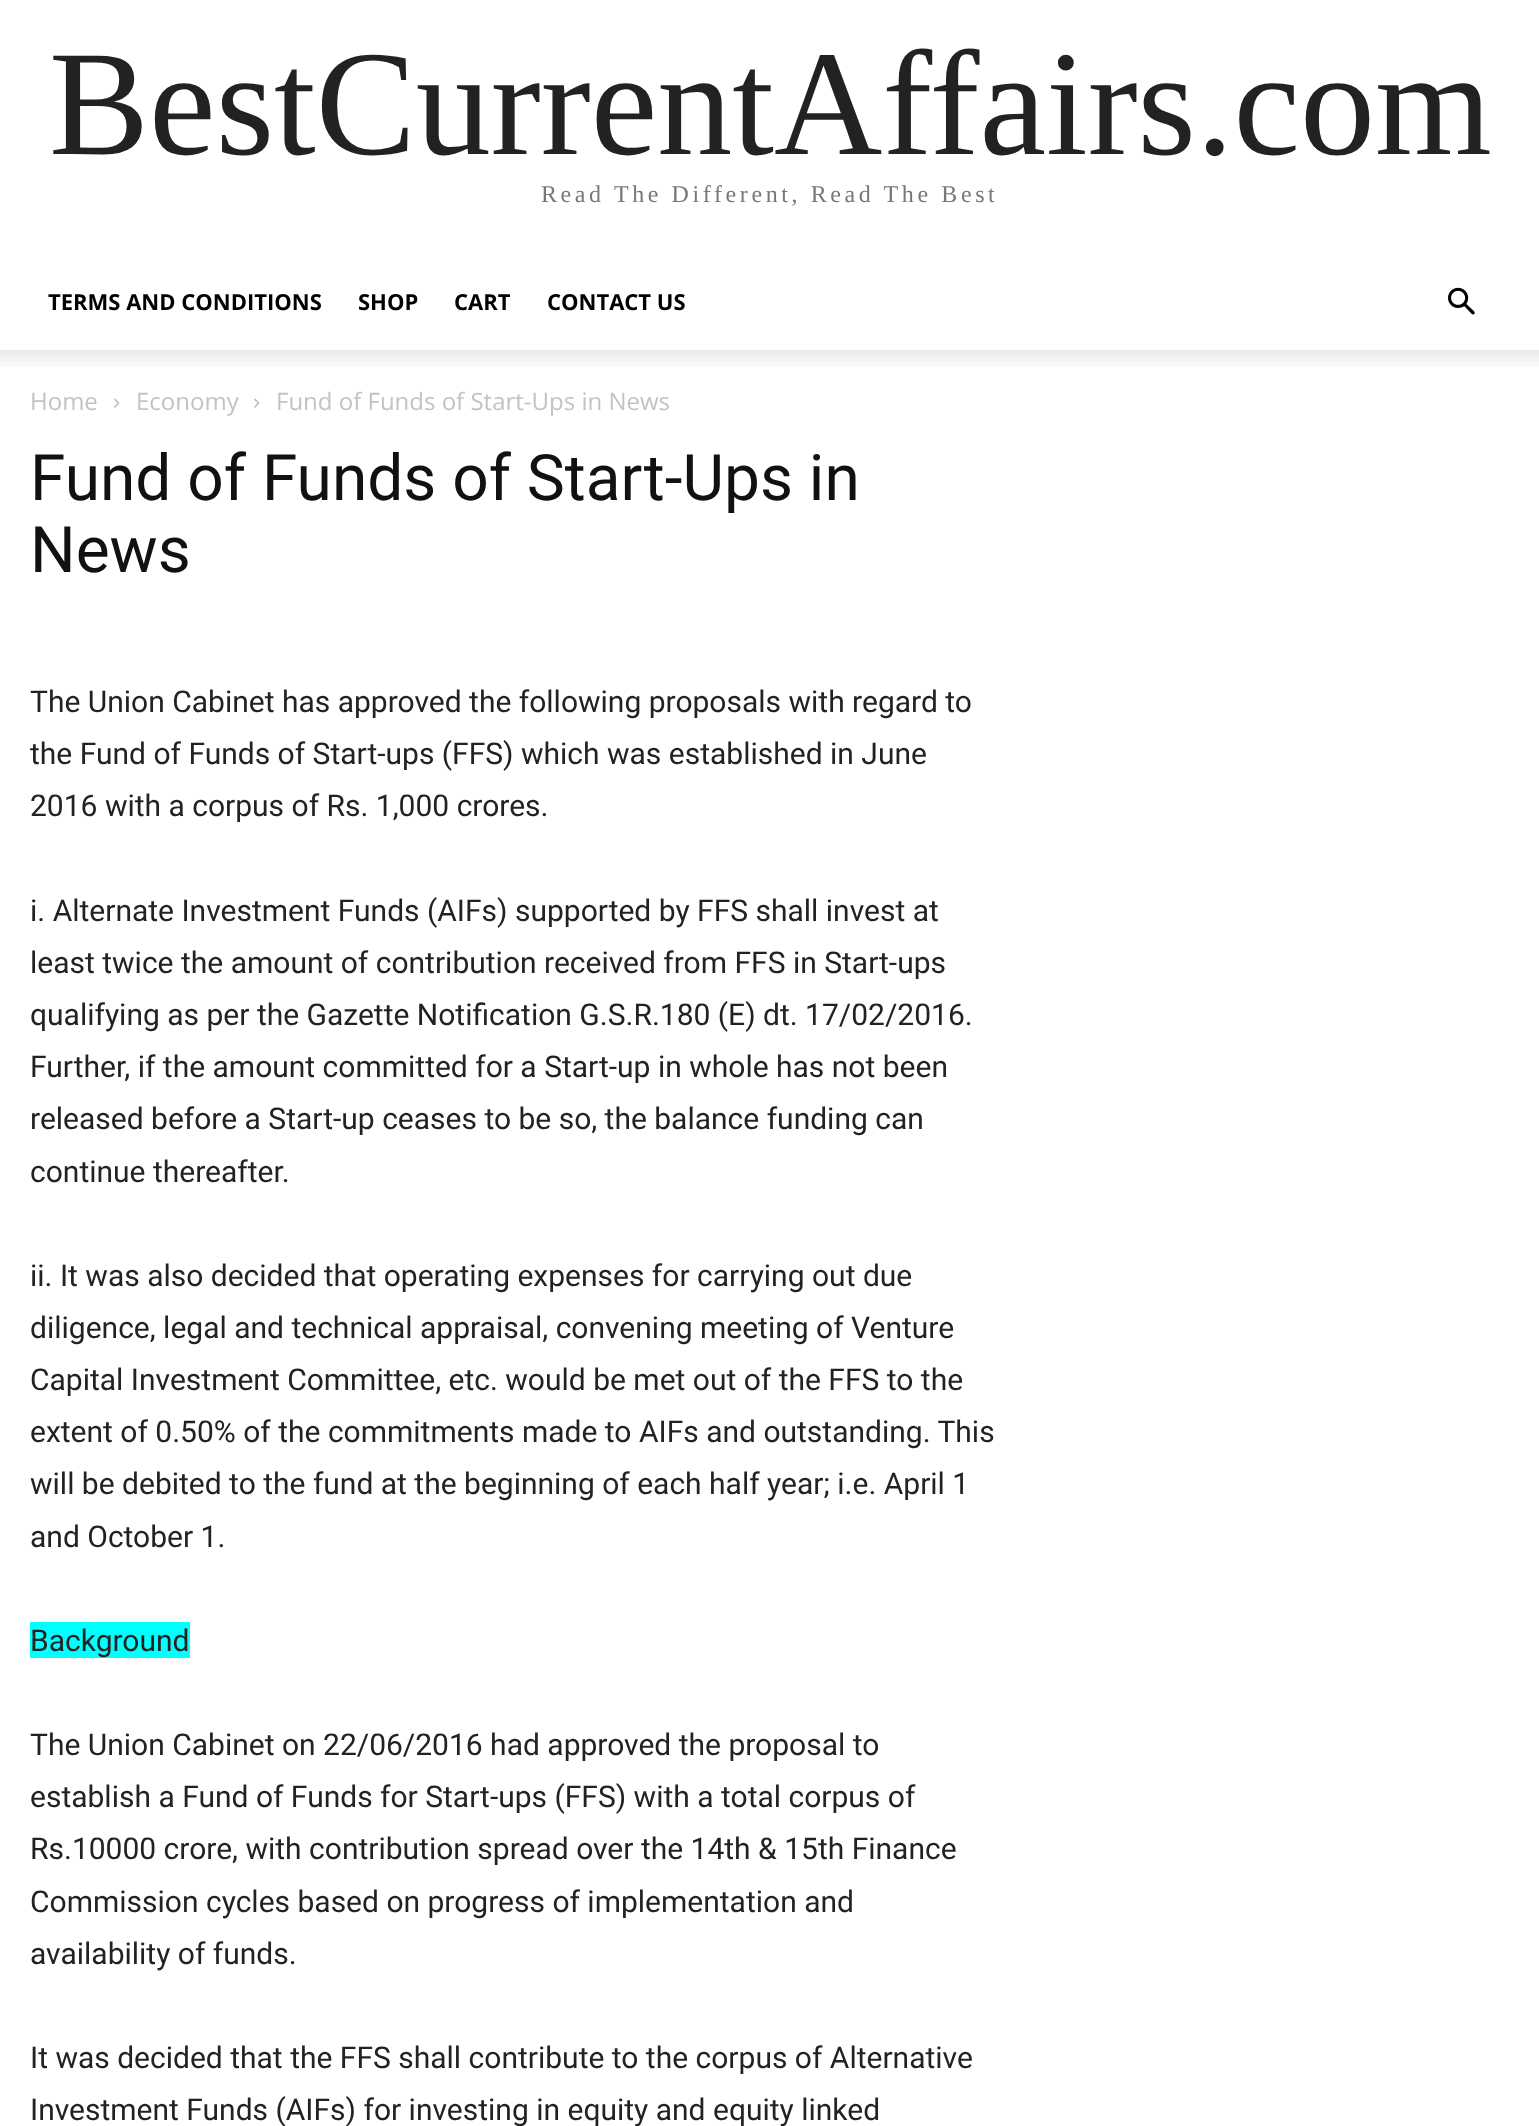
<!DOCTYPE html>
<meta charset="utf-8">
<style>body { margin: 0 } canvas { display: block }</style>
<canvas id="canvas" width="1539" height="2126"></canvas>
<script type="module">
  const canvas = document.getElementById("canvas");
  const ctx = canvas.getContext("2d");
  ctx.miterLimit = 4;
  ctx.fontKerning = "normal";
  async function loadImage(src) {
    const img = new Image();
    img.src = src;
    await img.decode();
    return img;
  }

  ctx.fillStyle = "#ffffff";
  ctx.fillRect(0, 0, 1539, 2126);
  ctx.font = "150px Liberation Serif";
  ctx.fillStyle = "#222222";
  ctx.fillText("BestCurrentAffairs.com", 49, 154);
  ctx.letterSpacing = "3.6px";
  ctx.font = "24px Liberation Serif";
  ctx.fillStyle = "#777777";
  ctx.fillText("Read The Different, Read The Best", 541, 202);
  ctx.letterSpacing = "0px";
  ctx.font = "bold 22px Open Sans";
  ctx.fillStyle = "#000000";
  ctx.fillText("TERMS AND CONDITIONS", 48, 310);
  ctx.fillText("SHOP", 358, 310);
  ctx.fillText("CART", 454, 310);
  ctx.fillText("CONTACT US", 547, 310);
  ctx.drawImage(await loadImage("img1.png"), 1448, 287, 27, 28);
  ctx.drawImage(await loadImage("img2.png"), 0, 350, 1539, 17);
  ctx.font = "24px Open Sans";
  ctx.fillStyle = "#c3c3c3";
  ctx.fillText("Home", 30, 410);
  ctx.drawImage(await loadImage("img3.png"), 114, 398, 6, 10);
  ctx.fillText("Economy", 136, 410);
  ctx.drawImage(await loadImage("img3.png"), 254, 398, 6, 10);
  ctx.fillText("Fund of Funds of Start-Ups in News", 276, 410);
  ctx.font = "64px Roboto";
  ctx.fillStyle = "#111111";
  ctx.fillText("Fund of Funds of Start-Ups in", 30, 500);
  ctx.fillText("News", 30, 572);
  ctx.font = "30px Roboto";
  ctx.fillStyle = "#222222";
  ctx.fillText("The Union Cabinet has approved the following proposals with regard to", 30, 712);
  ctx.fillText("the Fund of Funds of Start-ups (FFS) which was established in June", 30, 764);
  ctx.fillText("2016 with a corpus of Rs. 1,000 crores.", 30, 816);
  ctx.fillText("i. Alternate Investment Funds (AIFs) supported by FFS shall invest at", 30, 921);
  ctx.fillText("least twice the amount of contribution received from FFS in Start-ups", 30, 973);
  ctx.fillText("qualifying as per the Gazette Notification G.S.R.180 (E) dt. 17/02/2016.", 30, 1025);
  ctx.fillText("Further, if the amount committed for a Start-up in whole has not been", 30, 1077);
  ctx.fillText("released before a Start-up ceases to be so, the balance funding can", 30, 1129);
  ctx.fillText("continue thereafter.", 30, 1182);
  ctx.fillText("ii. It was also decided that operating expenses for carrying out due", 30, 1286);
  ctx.fillText("diligence, legal and technical appraisal, convening meeting of Venture", 30, 1338);
  ctx.fillText("Capital Investment Committee, etc. would be met out of the FFS to the", 30, 1390);
  ctx.fillText("extent of 0.50% of the commitments made to AIFs and outstanding. This", 30, 1442);
  ctx.fillText("will be debited to the fund at the beginning of each half year; i.e. April 1", 30, 1494);
  ctx.fillText("and October 1.", 30, 1547);
  ctx.fillStyle = "#00ffff";
  ctx.fillRect(30, 1622, 160, 36);
  ctx.fillStyle = "#222222";
  ctx.fillText("Background", 30, 1651);
  ctx.fillText("The Union Cabinet on 22/06/2016 had approved the proposal to", 30, 1755);
  ctx.fillText("establish a Fund of Funds for Start-ups (FFS) with a total corpus of", 30, 1807);
  ctx.fillText("Rs.10000 crore, with contribution spread over the 14th & 15th Finance", 30, 1859);
  ctx.fillText("Commission cycles based on progress of implementation and", 30, 1912);
  ctx.fillText("availability of funds.", 30, 1964);
  ctx.fillText("It was decided that the FFS shall contribute to the corpus of Alternative", 30, 2068);
  ctx.fillText("Investment Funds (AIFs) for investing in equity and equity linked", 30, 2120);
</script>
